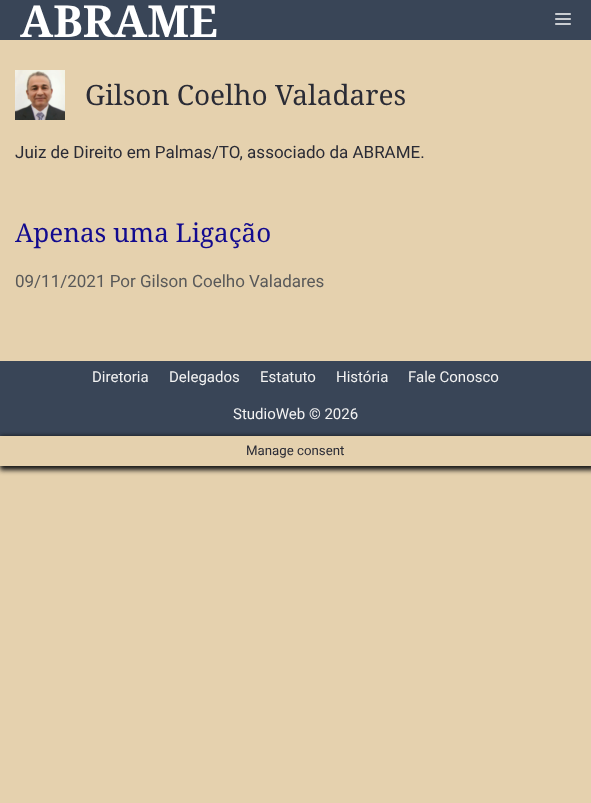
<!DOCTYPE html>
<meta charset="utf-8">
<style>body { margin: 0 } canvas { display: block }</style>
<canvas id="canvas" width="591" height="803"></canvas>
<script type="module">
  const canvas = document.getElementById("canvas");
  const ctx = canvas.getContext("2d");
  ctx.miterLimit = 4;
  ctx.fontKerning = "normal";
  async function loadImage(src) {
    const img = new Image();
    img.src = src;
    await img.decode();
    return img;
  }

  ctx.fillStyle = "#e5d1ae";
  ctx.fillRect(0, 0, 591, 803);
  ctx.fillStyle = "#394557";
  ctx.fillRect(0, 0, 591, 40);
  ctx.font = "bold 44px Noto Serif";
  ctx.fillStyle = "#ffffff";
  ctx.fillText("ABRAME", 20, 37);
  ctx.drawImage(await loadImage("img1.png"), 555, 13, 16, 12);
  ctx.drawImage(await loadImage("img2.png"), 15, 70, 50, 50);
  ctx.font = "28px Noto Serif";
  ctx.fillStyle = "#2a2b35";
  ctx.fillText("Gilson Coelho Valadares", 85, 105);
  ctx.font = "17px Roboto";
  ctx.fillText("Juiz de Direito em Palmas/TO, associado da ABRAME.", 15, 158);
  ctx.font = "26px Noto Serif";
  ctx.fillStyle = "#120a8f";
  ctx.fillText("Apenas uma Ligação", 15, 242);
  ctx.font = "17px Roboto";
  ctx.fillStyle = "#595959";
  ctx.fillText("09/11/2021 Por Gilson Coelho Valadares", 15, 287);
  ctx.fillStyle = "#394557";
  ctx.fillRect(0, 361, 591, 75);
  ctx.font = "15px Roboto";
  ctx.fillStyle = "#f2f2f2";
  ctx.fillText("Diretoria", 92, 382);
  ctx.fillText("Delegados", 169, 382);
  ctx.fillText("Estatuto", 260, 382);
  ctx.fillText("História", 336, 382);
  ctx.fillText("Fale Conosco", 408, 382);
  ctx.fillText("StudioWeb © 2026", 233, 419);
  ctx.save();
  ctx.beginPath();
  ctx.moveTo(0, 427);
  ctx.lineTo(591, 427);
  ctx.lineTo(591, 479);
  ctx.lineTo(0, 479);
  ctx.closePath();
  ctx.moveTo(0, 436);
  ctx.lineTo(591, 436);
  ctx.lineTo(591, 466);
  ctx.lineTo(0, 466);
  ctx.closePath();
  ctx.clip("evenodd");
  ctx.fillStyle = "#161616";
  ctx.filter = "blur(2.5px)";
  ctx.beginPath();
  ctx.rect(0, 436, 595, 34);
  ctx.fill();
  ctx.filter = "none";
  ctx.restore();
  ctx.font = "13.25px Roboto";
  ctx.fillStyle = "#2a2b35";
  ctx.fillText("Manage consent", 246, 455);
</script>
